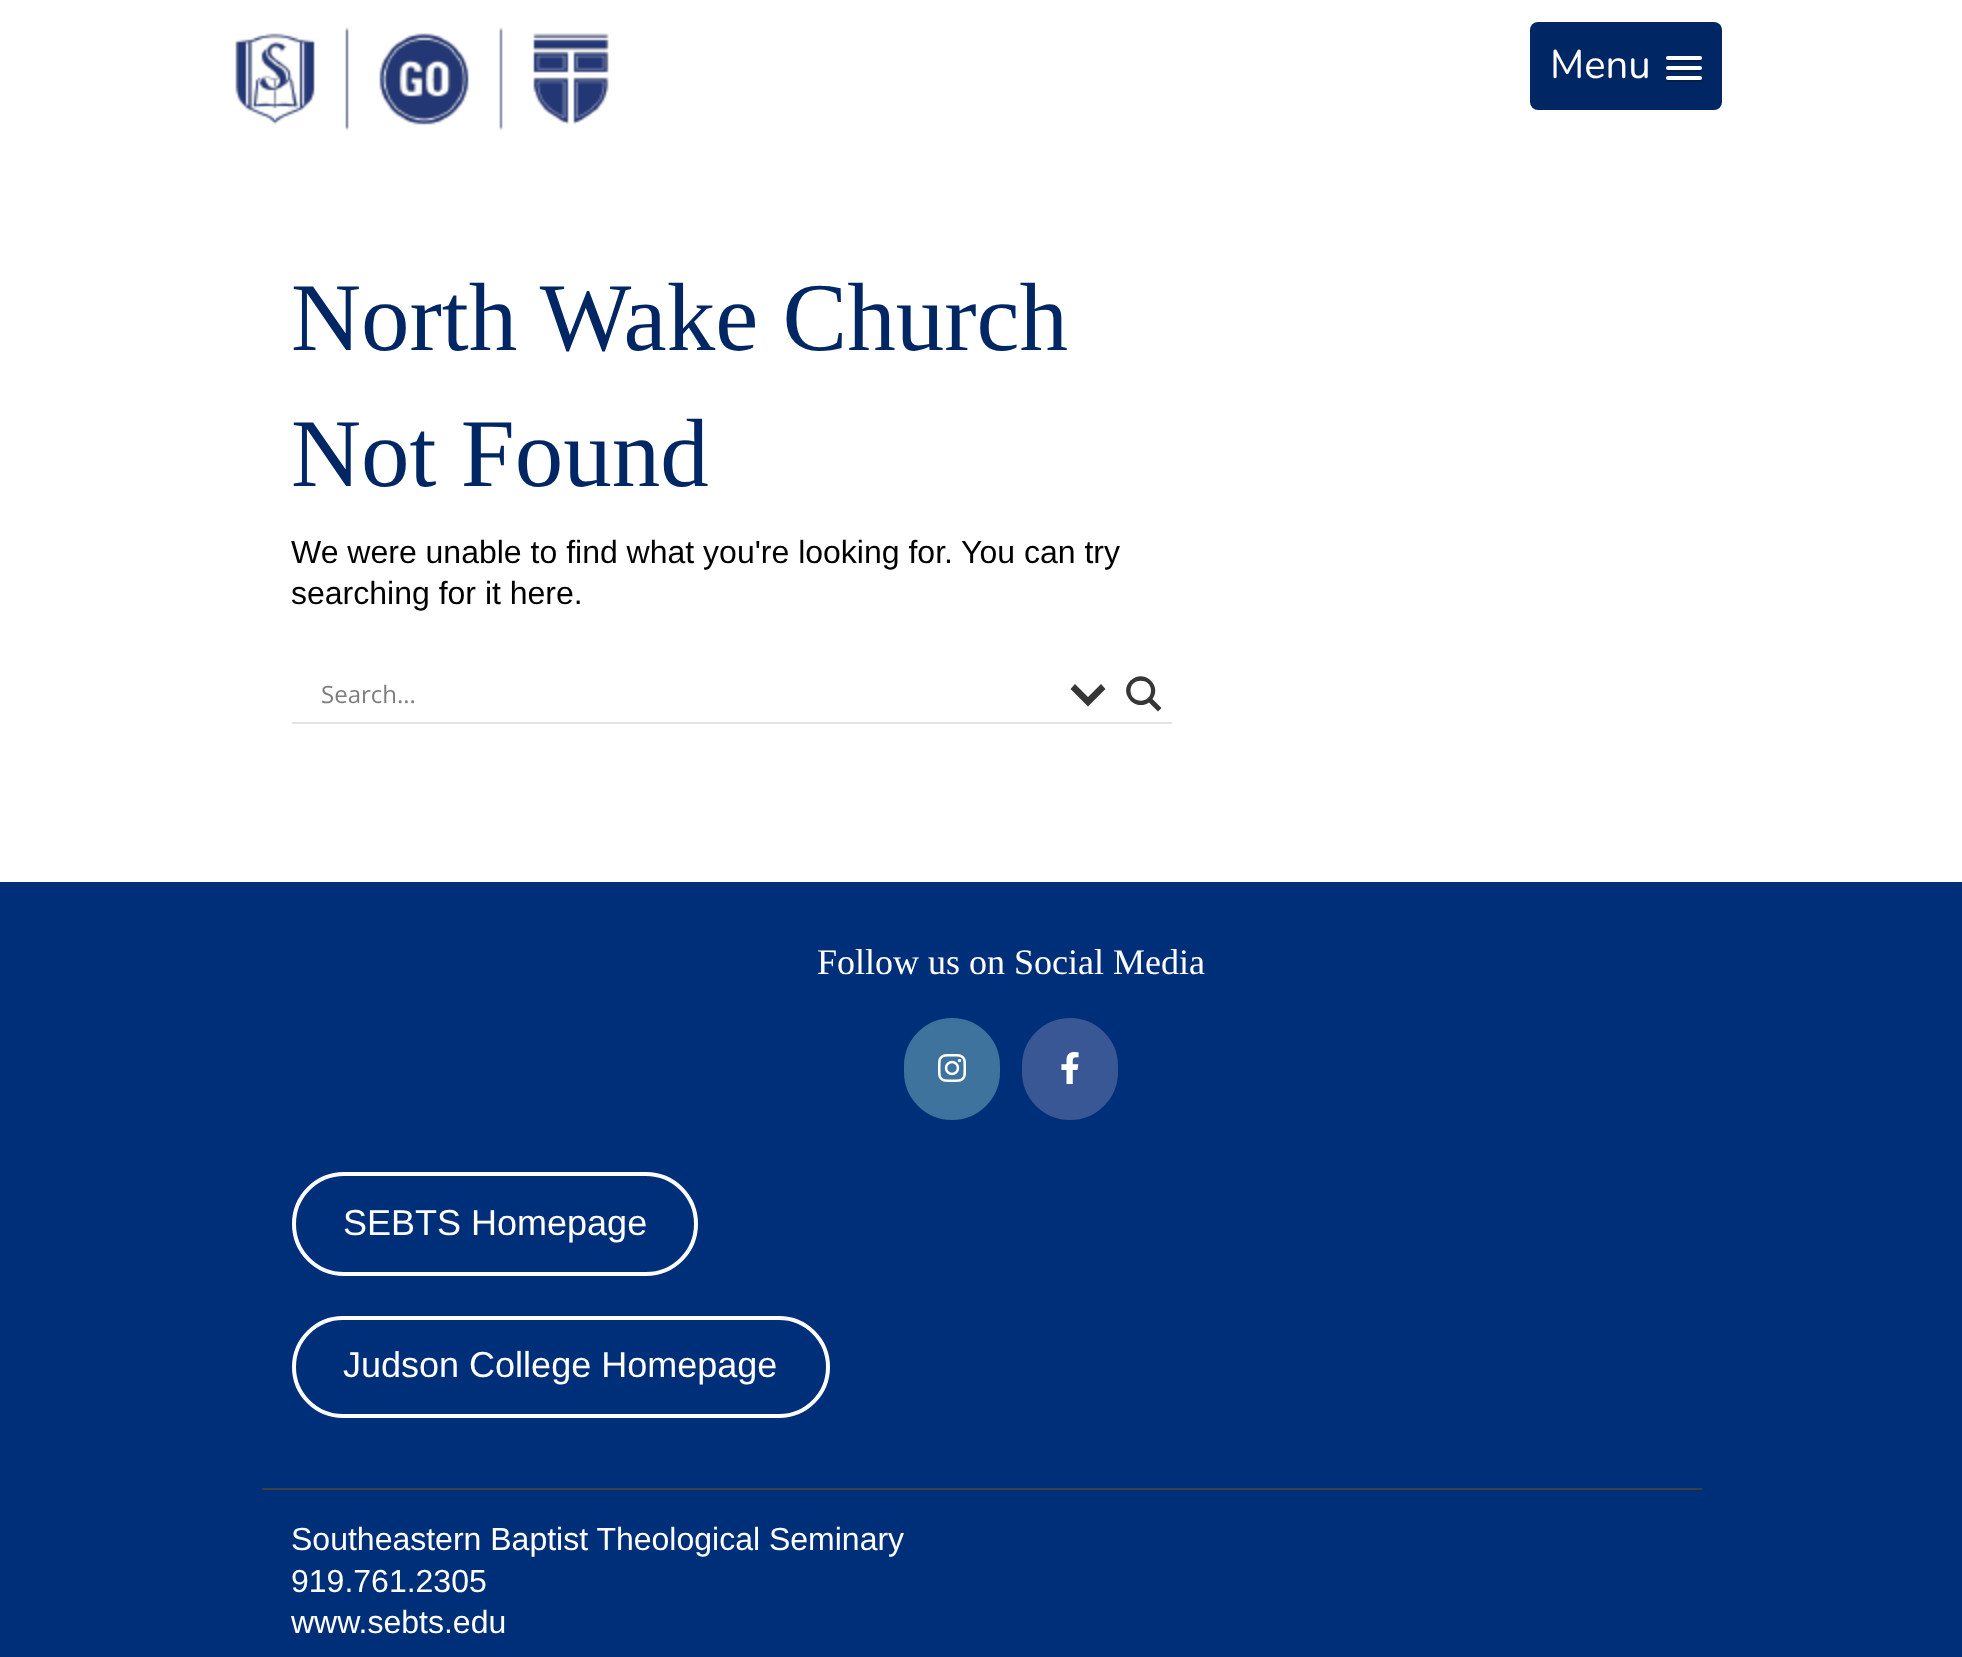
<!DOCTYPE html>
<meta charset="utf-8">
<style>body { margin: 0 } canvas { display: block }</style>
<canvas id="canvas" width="1962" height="1657"></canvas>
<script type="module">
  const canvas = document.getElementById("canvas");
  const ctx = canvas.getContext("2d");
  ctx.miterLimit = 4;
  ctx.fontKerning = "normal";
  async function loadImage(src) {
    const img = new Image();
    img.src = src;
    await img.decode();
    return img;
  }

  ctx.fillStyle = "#ffffff";
  ctx.fillRect(0, 0, 1962, 1657);
  ctx.drawImage(await loadImage("img1.png"), 235, 27, 374, 104);
  ctx.fillStyle = "#002664";
  ctx.beginPath();
  ctx.roundRect(1530, 22, 192, 88, 8);
  ctx.fill();
  ctx.font = "200 40px Nunito";
  ctx.fillStyle = "#ffffff";
  ctx.fillText("Menu", 1550, 78);
  ctx.fillStyle = "#001d4b";
  ctx.beginPath();
  ctx.moveTo(1666.5, 59);
  ctx.bezierCurveTo(1664, 63, 1673, 62, 1673.5, 62);
  ctx.lineTo(1694.5, 62);
  ctx.bezierCurveTo(1695, 62, 1704, 63, 1701.5, 59);
  ctx.bezierCurveTo(1701.5, 59.5, 1700.5, 60, 1700, 60);
  ctx.lineTo(1668, 60);
  ctx.bezierCurveTo(1667.5, 60, 1666.5, 59.5, 1666.5, 59);
  ctx.closePath();
  ctx.fill();
  ctx.fillStyle = "#ffffff";
  ctx.beginPath();
  ctx.roundRect(1666, 56, 36, 4, 2);
  ctx.fill();
  ctx.fillStyle = "#001d4b";
  ctx.beginPath();
  ctx.moveTo(1666.5, 69);
  ctx.bezierCurveTo(1664, 73, 1673, 72, 1673.5, 72);
  ctx.lineTo(1694.5, 72);
  ctx.bezierCurveTo(1695, 72, 1704, 73, 1701.5, 69);
  ctx.bezierCurveTo(1701.5, 69.5, 1700.5, 70, 1700, 70);
  ctx.lineTo(1668, 70);
  ctx.bezierCurveTo(1667.5, 70, 1666.5, 69.5, 1666.5, 69);
  ctx.closePath();
  ctx.fill();
  ctx.fillStyle = "#ffffff";
  ctx.beginPath();
  ctx.roundRect(1666, 66, 36, 4, 2);
  ctx.fill();
  ctx.fillStyle = "#001d4b";
  ctx.beginPath();
  ctx.moveTo(1666.5, 79);
  ctx.bezierCurveTo(1664, 83, 1673, 82, 1673.5, 82);
  ctx.lineTo(1694.5, 82);
  ctx.bezierCurveTo(1695, 82, 1704, 83, 1701.5, 79);
  ctx.bezierCurveTo(1701.5, 79.5, 1700.5, 80, 1700, 80);
  ctx.lineTo(1668, 80);
  ctx.bezierCurveTo(1667.5, 80, 1666.5, 79.5, 1666.5, 79);
  ctx.closePath();
  ctx.fill();
  ctx.fillStyle = "#ffffff";
  ctx.beginPath();
  ctx.roundRect(1666, 76, 36, 4, 2);
  ctx.fill();
  ctx.font = "97px Liberation Serif";
  ctx.fillStyle = "#002664";
  ctx.fillText("North Wake Church", 291, 350);
  ctx.fillText("Not Found", 291, 486);
  ctx.font = "32px Liberation Sans";
  ctx.fillStyle = "#000000";
  ctx.fillText("We were unable to find what you're looking for.", 291, 563);
  ctx.fillText("You can try", 961, 563);
  ctx.fillText("searching for it here.", 291, 604);
  ctx.fillStyle = "#e4e4e4";
  ctx.fillRect(292, 722, 880, 2);
  ctx.font = "24px Open Sans";
  ctx.fillStyle = "#7d7d7d";
  ctx.fillText("Search...", 321, 703);
  ctx.fillStyle = "#363636";
  ctx.beginPath();
  ctx.moveTo(1101, 684);
  ctx.lineTo(1105.5, 689);
  ctx.lineTo(1088, 706.5);
  ctx.lineTo(1070.5, 689);
  ctx.lineTo(1075, 684);
  ctx.lineTo(1088, 697);
  ctx.closePath();
  ctx.fill();
  ctx.beginPath();
  ctx.moveTo(1161.5, 708);
  ctx.lineTo(1152.5, 699);
  ctx.bezierCurveTo(1162.5, 685, 1143.5, 668, 1130.5, 680.5);
  ctx.bezierCurveTo(1118, 693, 1135, 712, 1149, 702.5);
  ctx.lineTo(1158, 711.5);
  ctx.closePath();
  ctx.moveTo(1130.5, 690.5);
  ctx.bezierCurveTo(1130.5, 677.5, 1151, 677.5, 1151, 690.5);
  ctx.bezierCurveTo(1151, 704, 1130.5, 704, 1130.5, 690.5);
  ctx.closePath();
  ctx.fill();
  ctx.fillStyle = "#002f7a";
  ctx.fillRect(0, 882, 1962, 775);
  ctx.fillStyle = "#403f3f";
  ctx.fillRect(262, 1488, 1440, 2);
  ctx.font = "36px Liberation Serif";
  ctx.fillStyle = "#ffffff";
  ctx.fillText("Follow us on Social Media", 817, 974);
  ctx.fillStyle = "#3d739c";
  ctx.beginPath();
  ctx.roundRect(905, 1019, 94, 100, 47);
  ctx.fill();
  ctx.strokeStyle = "#3d739c";
  ctx.lineWidth = 2;
  ctx.stroke();
  ctx.drawImage(await loadImage("img2.png"), 938, 1054, 28, 28);
  ctx.fillStyle = "#3a5795";
  ctx.beginPath();
  ctx.roundRect(1023, 1019, 94, 100, 47);
  ctx.fill();
  ctx.strokeStyle = "#3a5795";
  ctx.stroke();
  ctx.drawImage(await loadImage("img3.png"), 1061, 1052, 18, 32);
  ctx.beginPath();
  ctx.roundRect(294, 1174, 402, 100, 50);
  ctx.strokeStyle = "#ffffff";
  ctx.lineWidth = 4;
  ctx.stroke();
  ctx.font = "36px Liberation Sans";
  ctx.fillStyle = "#ffffff";
  ctx.fillText("SEBTS Homepage", 343, 1235);
  ctx.beginPath();
  ctx.roundRect(294, 1318, 534, 98, 49);
  ctx.stroke();
  ctx.fillText("Judson College Homepage", 343, 1377);
  ctx.font = "32px Liberation Sans";
  ctx.fillText("Southeastern Baptist Theological Seminary", 291, 1550);
  ctx.fillText("919.761.2305", 291, 1592);
  ctx.fillText("www.sebts.edu", 291, 1633);
</script>
